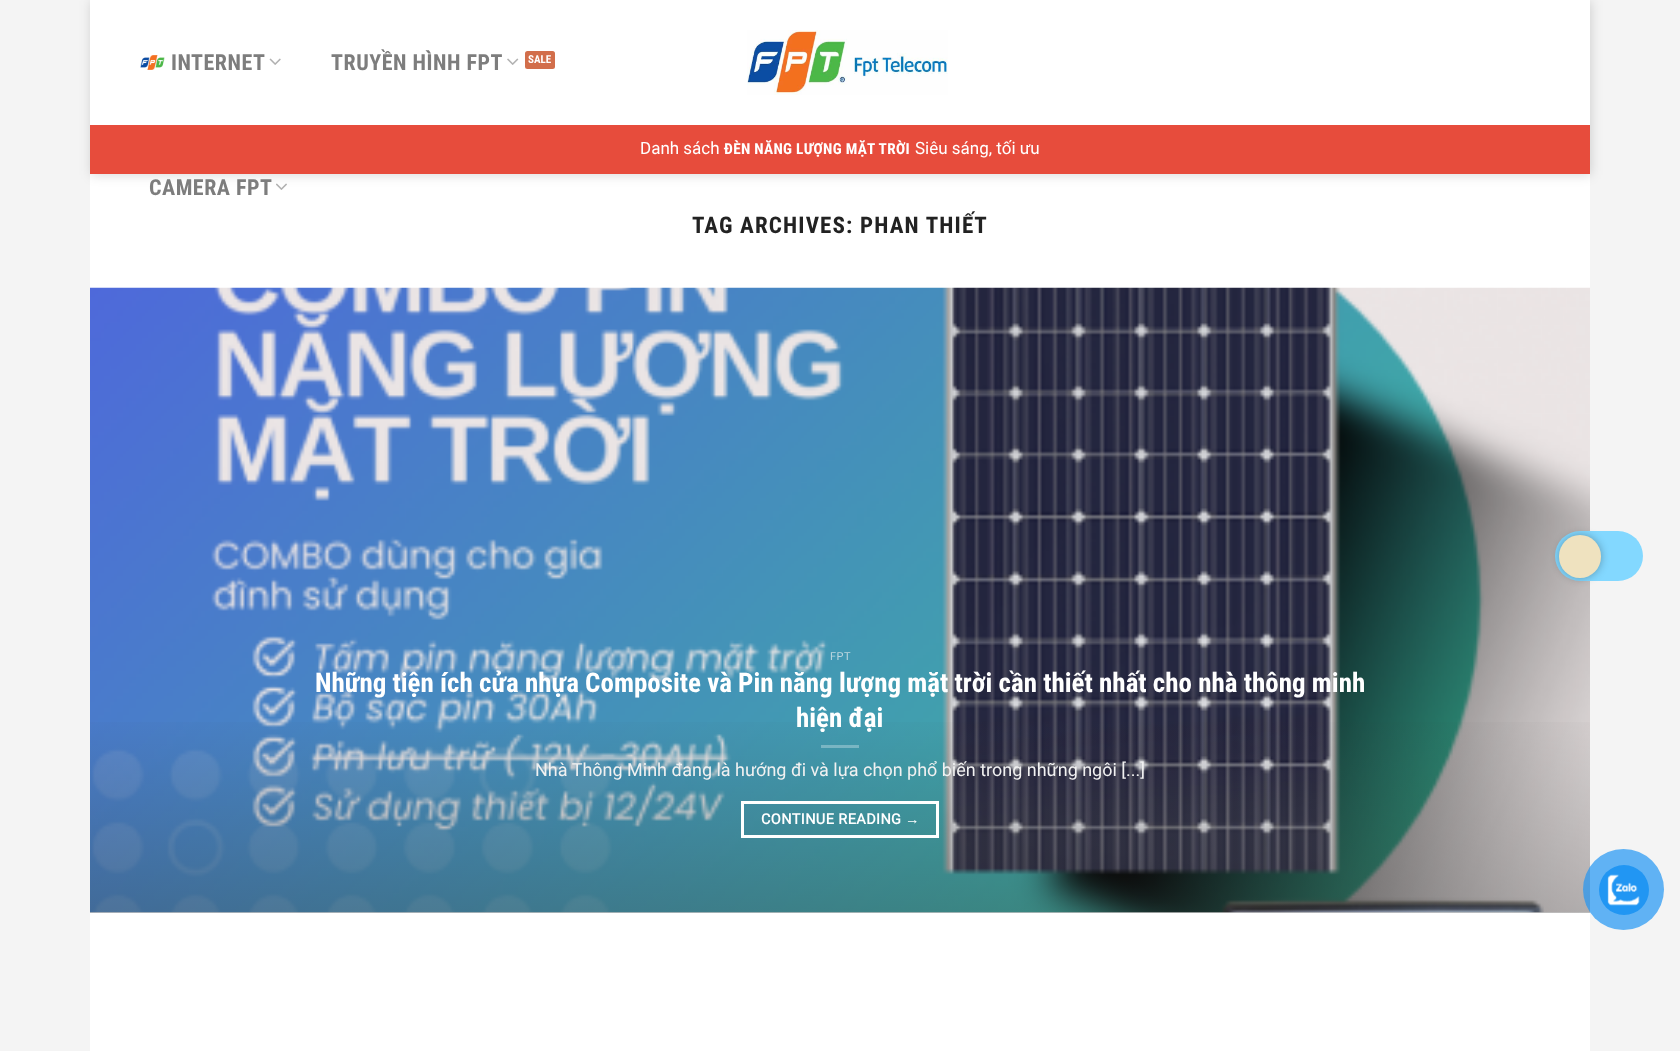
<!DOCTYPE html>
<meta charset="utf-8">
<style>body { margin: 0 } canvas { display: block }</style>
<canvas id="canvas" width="1680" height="1051"></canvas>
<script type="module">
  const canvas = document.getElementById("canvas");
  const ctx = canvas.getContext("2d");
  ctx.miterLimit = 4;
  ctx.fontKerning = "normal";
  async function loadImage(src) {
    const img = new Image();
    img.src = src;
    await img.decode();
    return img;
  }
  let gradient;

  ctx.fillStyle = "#f4f4f4";
  ctx.fillRect(0, 0, 1680, 1051);
  ctx.fillStyle = "#ffffff";
  ctx.fillRect(90, 0, 1500, 1051);
  ctx.save();
  ctx.beginPath();
  ctx.moveTo(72, 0);
  ctx.lineTo(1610, 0);
  ctx.lineTo(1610, 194);
  ctx.lineTo(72, 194);
  ctx.closePath();
  ctx.moveTo(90, 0);
  ctx.lineTo(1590, 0);
  ctx.lineTo(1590, 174);
  ctx.lineTo(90, 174);
  ctx.closePath();
  ctx.clip("evenodd");
  ctx.fillStyle = "rgba(0, 0, 0, 0.15)";
  ctx.filter = "blur(6px)";
  ctx.beginPath();
  ctx.rect(91, 1, 1500, 174);
  ctx.fill();
  ctx.filter = "none";
  ctx.restore();
  ctx.drawImage(await loadImage("img1.png"), 140, 55, 25, 15);
  ctx.letterSpacing = "0.5px";
  ctx.font = "bold 22px Roboto Condensed";
  ctx.fillStyle = "#7d7d7d";
  ctx.fillText("INTERNET", 171, 70);
  ctx.drawImage(await loadImage("img2.png"), 269, 58, 12, 7);
  ctx.fillText("TRUYỀN HÌNH FPT", 331, 70);
  ctx.drawImage(await loadImage("img3.png"), 507, 58, 12, 7);
  ctx.fillStyle = "#d26e4b";
  ctx.beginPath();
  ctx.roundRect(525, 51, 30, 18, 2.5);
  ctx.fill();
  ctx.letterSpacing = "0px";
  ctx.font = "bold 11px Roboto Condensed";
  ctx.fillStyle = "#ffffff";
  ctx.fillText("SALE", 528, 63);
  ctx.letterSpacing = "0.5px";
  ctx.font = "bold 22px Roboto Condensed";
  ctx.fillStyle = "#7d7d7d";
  ctx.fillText("CAMERA FPT", 149, 195);
  ctx.drawImage(await loadImage("img4.png"), 276, 183, 11, 7);
  ctx.drawImage(await loadImage("img5.png"), 747, 30, 201, 65);
  ctx.fillStyle = "#e74c3c";
  ctx.fillRect(90, 125, 1500, 49);
  ctx.letterSpacing = "0px";
  ctx.font = "17px Roboto";
  ctx.fillStyle = "#ffffff";
  ctx.fillText("Danh sách", 640, 154);
  ctx.letterSpacing = "0.3px";
  ctx.font = "bold 15.25px Roboto Condensed";
  ctx.fillText("ĐÈN NĂNG LƯỢNG MẶT TRỜI", 724, 154);
  ctx.letterSpacing = "0px";
  ctx.font = "17px Roboto";
  ctx.fillText("Siêu sáng, tối ưu", 915, 154);
  ctx.letterSpacing = "1.15px";
  ctx.font = "bold 23px Roboto Condensed";
  ctx.fillStyle = "#222222";
  ctx.fillText("TAG ARCHIVES: PHAN THIẾT", 692, 233);
  ctx.drawImage(await loadImage("img6.png"), 90, 287, 1500, 626);
  gradient = ctx.createLinearGradient(840, 913, 840, 288);
  gradient.addColorStop(0, "rgba(50, 50, 50, 0.3)");
  gradient.addColorStop(0.33, "rgba(50, 50, 50, 0)");
  ctx.fillStyle = gradient;
  ctx.fillRect(90, 722, 1500, 191);
  ctx.letterSpacing = "0.5px";
  ctx.font = "11px Roboto";
  ctx.fillStyle = "#bdd6df";
  ctx.fillText("FPT", 830, 660);
  ctx.letterSpacing = "0px";
  ctx.font = "bold 27px Roboto Condensed";
  ctx.fillStyle = "#ffffff";
  ctx.fillText("Những tiện ích cửa nhựa Composite và Pin năng lượng mặt trời cần thiết nhất cho nhà thông minh", 315, 692);
  ctx.fillText("hiện đại", 796, 727);
  ctx.fillStyle = "rgba(255, 255, 255, 0.3)";
  ctx.fillRect(821, 745, 38, 3);
  ctx.font = "18px Roboto";
  ctx.fillStyle = "#f1f1f1";
  ctx.fillText("Nhà Thông Minh đang là hướng đi và lựa chọn phổ biến trong những ngôi [...]", 535, 776);
  ctx.strokeStyle = "#ffffff";
  ctx.lineWidth = 3;
  ctx.strokeRect(742.5, 802.5, 195, 34);
  ctx.letterSpacing = "0.4px";
  ctx.font = "bold 14.5px Roboto";
  ctx.fillStyle = "#ffffff";
  ctx.fillText("CONTINUE READING", 761, 824);
  ctx.font = "bold 14.5px Liberation Sans";
  ctx.fillText("→", 905, 824);
  ctx.fillStyle = "#83d8ff";
  ctx.beginPath();
  ctx.roundRect(1555, 531, 88, 50, 25);
  ctx.fill();
  ctx.fillStyle = "rgba(0, 0, 0, 0.3)";
  ctx.filter = "blur(4px)";
  ctx.beginPath();
  ctx.roundRect(1559, 535, 42, 43, 21);
  ctx.fill();
  ctx.filter = "none";
  ctx.fillStyle = "#efe2bf";
  ctx.beginPath();
  ctx.roundRect(1559, 535, 42, 43, 21);
  ctx.fill();
  ctx.fillStyle = "rgba(33, 150, 243, 0.7)";
  ctx.beginPath();
  ctx.arc(1623.5, 889.5, 40.5, 0, Math.PI * 2);
  ctx.fill();
  ctx.fillStyle = "#2196f3";
  ctx.beginPath();
  ctx.arc(1624, 890, 25, 0, Math.PI * 2);
  ctx.fill();
  ctx.drawImage(await loadImage("img7.png"), 1607, 874, 33, 32);
</script>
